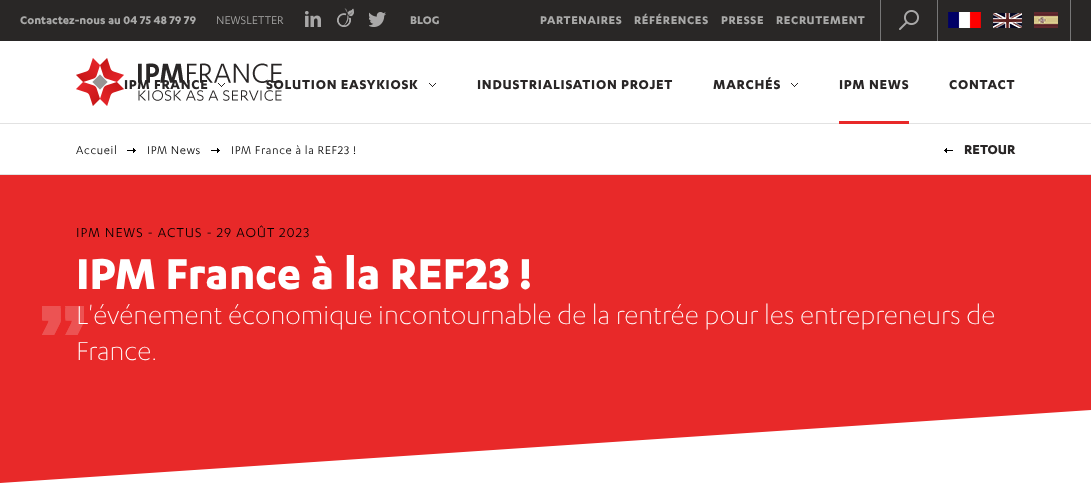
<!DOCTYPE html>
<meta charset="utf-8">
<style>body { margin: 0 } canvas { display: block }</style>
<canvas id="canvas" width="1091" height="495"></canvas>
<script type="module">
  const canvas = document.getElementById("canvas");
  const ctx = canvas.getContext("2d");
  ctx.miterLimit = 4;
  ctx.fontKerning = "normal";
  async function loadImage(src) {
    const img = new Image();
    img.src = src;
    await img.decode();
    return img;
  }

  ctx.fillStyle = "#ffffff";
  ctx.fillRect(0, 0, 1091, 495);
  ctx.fillStyle = "#292726";
  ctx.fillRect(0, 0, 1091, 41);
  ctx.font = "bold 13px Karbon";
  ctx.fillStyle = "#a9a9a8";
  ctx.fillText("Contactez-nous au 04 75 48 79 79", 20, 24);
  ctx.font = "13px Karbon";
  ctx.fillText("NEWSLETTER", 216, 24);
  ctx.drawImage(await loadImage("img1.png"), 305, 11, 16, 16);
  ctx.drawImage(await loadImage("img2.png"), 337, 8, 17, 19);
  ctx.drawImage(await loadImage("img3.png"), 369, 12, 17, 15);
  ctx.font = "bold 13px Karbon";
  ctx.fillText("BLOG", 410, 24);
  ctx.letterSpacing = "0.65px";
  ctx.fillText("PARTENAIRES", 540, 24);
  ctx.fillText("RÉFÉRENCES", 634, 24);
  ctx.fillText("PRESSE", 721, 24);
  ctx.fillText("RECRUTEMENT", 776, 24);
  ctx.fillStyle = "#777777";
  ctx.fillRect(937, 0, 1, 41);
  ctx.fillRect(880, 0, 1, 41);
  ctx.drawImage(await loadImage("img4.png"), 899, 10, 20, 20);
  ctx.fillRect(1070, 0, 1, 41);
  ctx.drawImage(await loadImage("img5.png"), 948, 12, 33, 16);
  ctx.drawImage(await loadImage("img6.png"), 993, 13, 29, 15);
  ctx.drawImage(await loadImage("img7.png"), 1034, 12, 24, 16);
  ctx.drawImage(await loadImage("img8.png"), 76, 58, 206, 48);
  ctx.letterSpacing = "0.75px";
  ctx.font = "bold 15px Karbon";
  ctx.fillStyle = "#292626";
  ctx.fillText("IPM FRANCE", 124, 89);
  ctx.drawImage(await loadImage("img9.png"), 218, 83, 7, 4);
  ctx.fillText("SOLUTION EASYKIOSK", 266, 89);
  ctx.drawImage(await loadImage("img9.png"), 429, 83, 7, 4);
  ctx.fillText("INDUSTRIALISATION PROJET", 477, 89);
  ctx.fillText("MARCHÉS", 713, 89);
  ctx.drawImage(await loadImage("img9.png"), 791, 83, 7, 4);
  ctx.fillText("IPM NEWS", 839, 89);
  ctx.fillStyle = "#e2e2e2";
  ctx.fillRect(0, 123, 1091, 1);
  ctx.fillStyle = "#e82929";
  ctx.fillRect(839, 121, 70, 3);
  ctx.fillStyle = "#292626";
  ctx.fillText("CONTACT", 949, 89);
  ctx.fillStyle = "#e2e2e2";
  ctx.fillRect(0, 174, 1091, 1);
  ctx.letterSpacing = "0.65px";
  ctx.font = "13px Karbon";
  ctx.fillStyle = "#000000";
  ctx.fillText("Accueil", 76, 154);
  ctx.drawImage(await loadImage("img10.png"), 127, 148, 9, 5);
  ctx.fillText("IPM News", 147, 154);
  ctx.drawImage(await loadImage("img10.png"), 211, 148, 9, 5);
  ctx.fillText("IPM France à la REF23 !", 231, 154);
  ctx.drawImage(await loadImage("img11.png"), 944, 148, 9, 5);
  ctx.letterSpacing = "0px";
  ctx.font = "bold 15px Karbon";
  ctx.fillStyle = "#292626";
  ctx.fillText("RETOUR", 964, 154);
  ctx.fillStyle = "#e82929";
  ctx.fillRect(0, 175, 1091, 234);
  ctx.letterSpacing = "1.05px";
  ctx.font = "15px Karbon";
  ctx.fillStyle = "#000000";
  ctx.fillText("IPM NEWS - ACTUS - 29 AOÛT 2023", 76, 237);
  ctx.letterSpacing = "0px";
  ctx.font = "bold 50px Karbon";
  ctx.fillStyle = "#ffffff";
  ctx.fillText("IPM France à la REF23 !", 76, 289);
  ctx.font = "300 30px Karbon";
  ctx.fillText("L'événement économique incontournable de la rentrée pour les entrepreneurs de", 76, 324);
  ctx.drawImage(await loadImage("img12.png"), 42, 306, 42, 29);
  ctx.fillText("France.", 76, 360);
  ctx.save();
  ctx.beginPath();
  ctx.rect(0, 409, 1091, 74);
  ctx.clip();
  ctx.fillStyle = "#e82929";
  ctx.beginPath();
  ctx.moveTo(1091, 410);
  ctx.lineTo(0, 483);
  ctx.lineTo(-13, -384);
  ctx.lineTo(1078, -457);
  ctx.closePath();
  ctx.fill("evenodd");
  ctx.restore();
</script>
